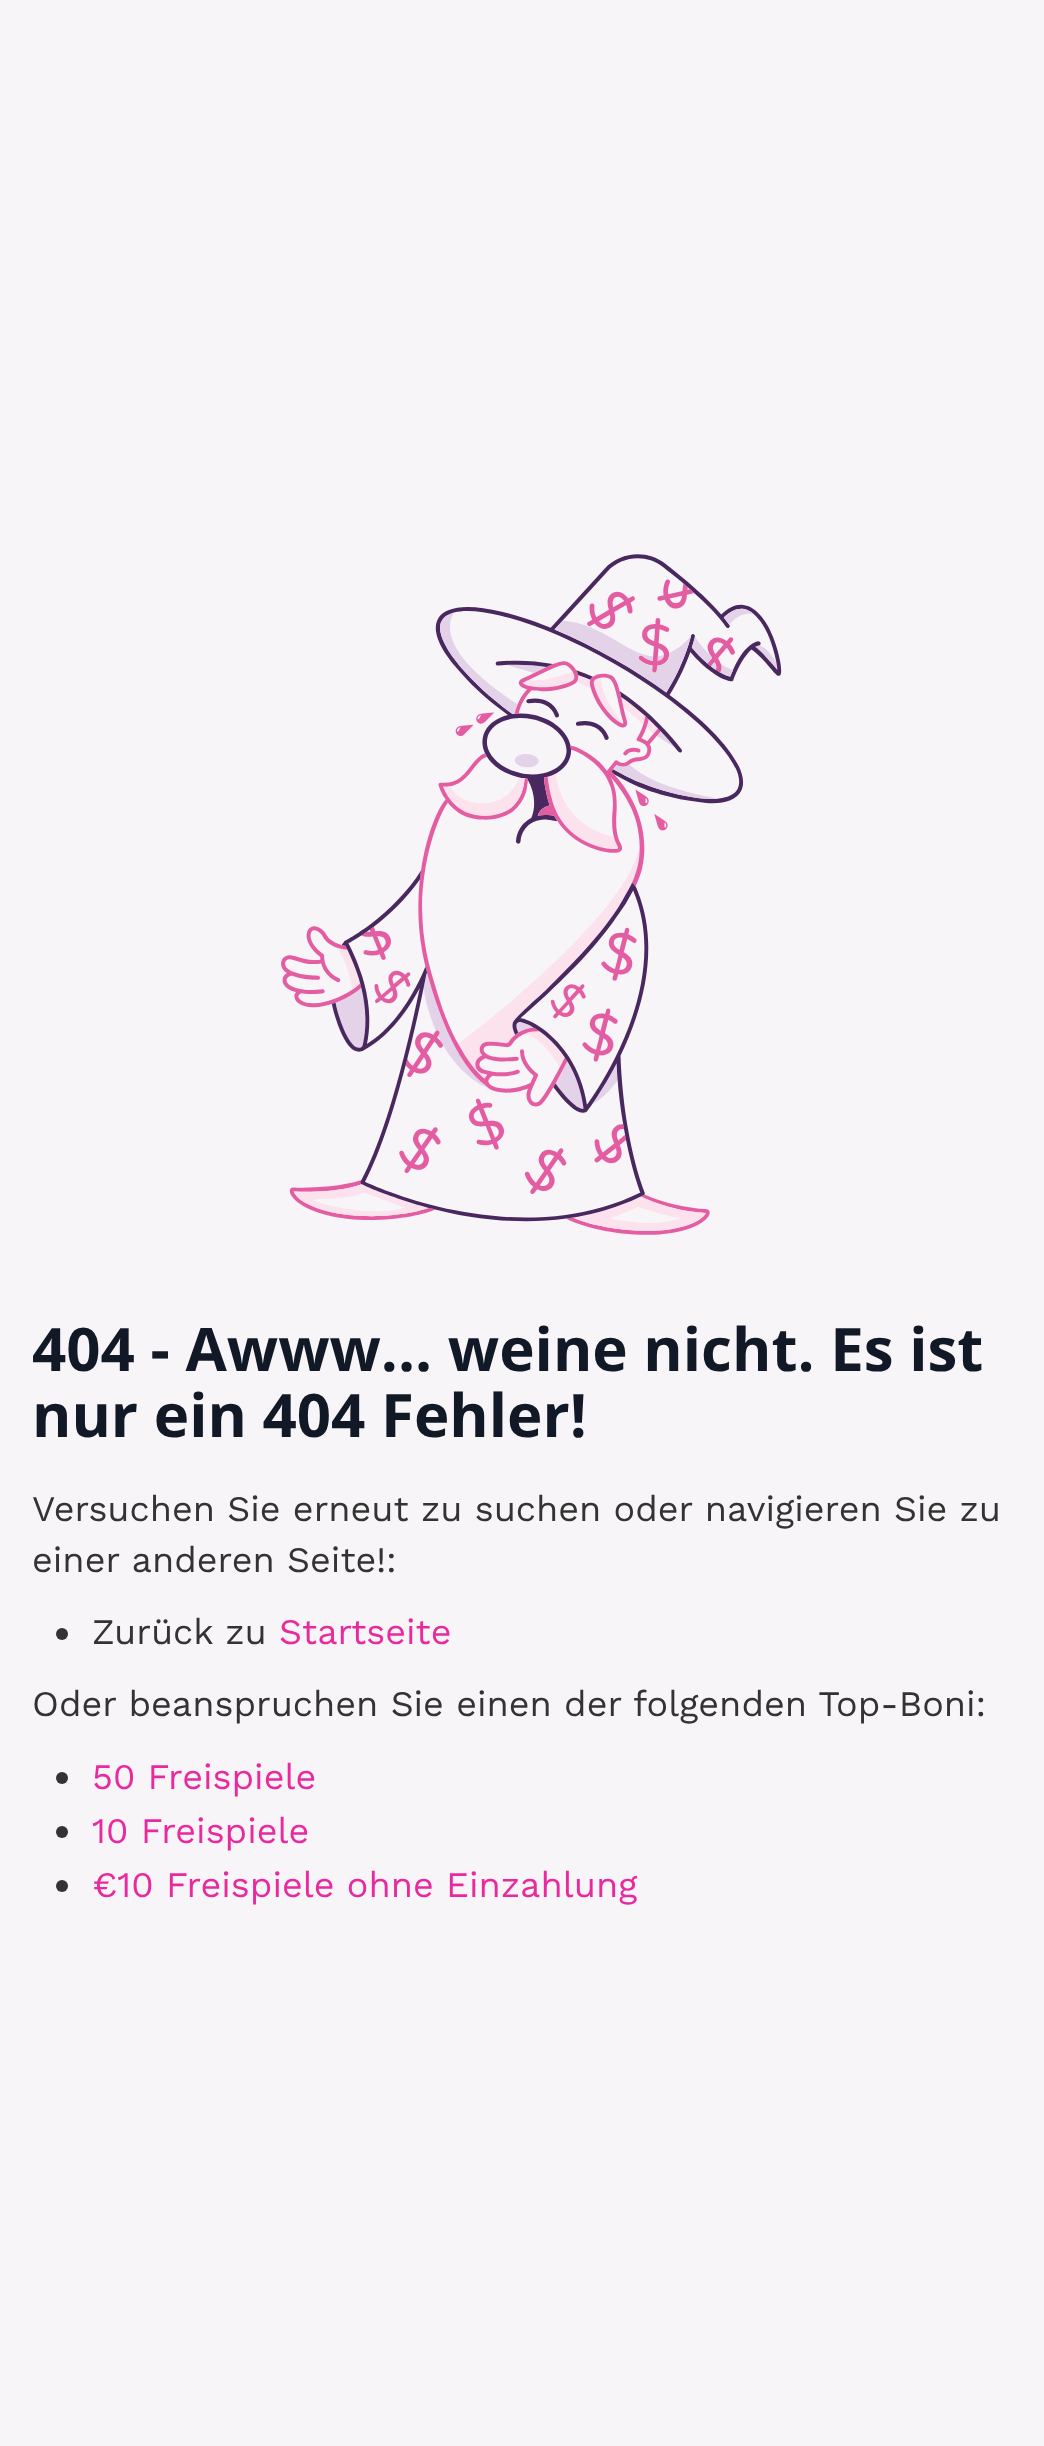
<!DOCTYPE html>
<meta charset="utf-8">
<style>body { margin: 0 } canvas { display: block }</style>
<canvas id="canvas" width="1044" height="2446"></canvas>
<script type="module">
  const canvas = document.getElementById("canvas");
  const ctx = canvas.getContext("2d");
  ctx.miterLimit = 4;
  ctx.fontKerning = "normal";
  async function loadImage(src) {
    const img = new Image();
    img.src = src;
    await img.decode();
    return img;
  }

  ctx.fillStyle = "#f8f5f8";
  ctx.fillRect(0, 0, 1044, 2446);
  ctx.drawImage(await loadImage("img1.png"), 281, 554, 501, 681);
  ctx.font = "bold 60px Open Sans";
  ctx.fillStyle = "#111826";
  ctx.fillText("404 - Awww... weine nicht. Es ist", 32, 1371);
  ctx.fillText("nur ein 404 Fehler!", 32, 1437);
  ctx.font = "36px Work Sans";
  ctx.fillStyle = "#333333";
  ctx.fillText("Versuchen Sie erneut zu suchen oder navigieren Sie zu", 32, 1521);
  ctx.fillText("einer anderen Seite!:", 32, 1572);
  ctx.beginPath();
  ctx.arc(62, 1634, 6, 0, Math.PI * 2);
  ctx.fill();
  ctx.fillText("Zurück zu", 92, 1644);
  ctx.fillStyle = "#e92a9f";
  ctx.fillText("Startseite", 279, 1644);
  ctx.fillStyle = "#333333";
  ctx.fillText("Oder beanspruchen Sie einen der folgenden Top-Boni:", 32, 1716);
  ctx.beginPath();
  ctx.arc(62, 1778, 6, 0, Math.PI * 2);
  ctx.fill();
  ctx.fillStyle = "#e92a9f";
  ctx.fillText("50 Freispiele", 92, 1789);
  ctx.fillStyle = "#333333";
  ctx.beginPath();
  ctx.arc(62, 1832, 6, 0, Math.PI * 2);
  ctx.fill();
  ctx.fillStyle = "#e92a9f";
  ctx.fillText("10 Freispiele", 92, 1843);
  ctx.fillStyle = "#333333";
  ctx.beginPath();
  ctx.arc(62, 1886, 6, 0, Math.PI * 2);
  ctx.fill();
  ctx.fillStyle = "#e92a9f";
  ctx.fillText("€10 Freispiele ohne Einzahlung", 92, 1897);
</script>
